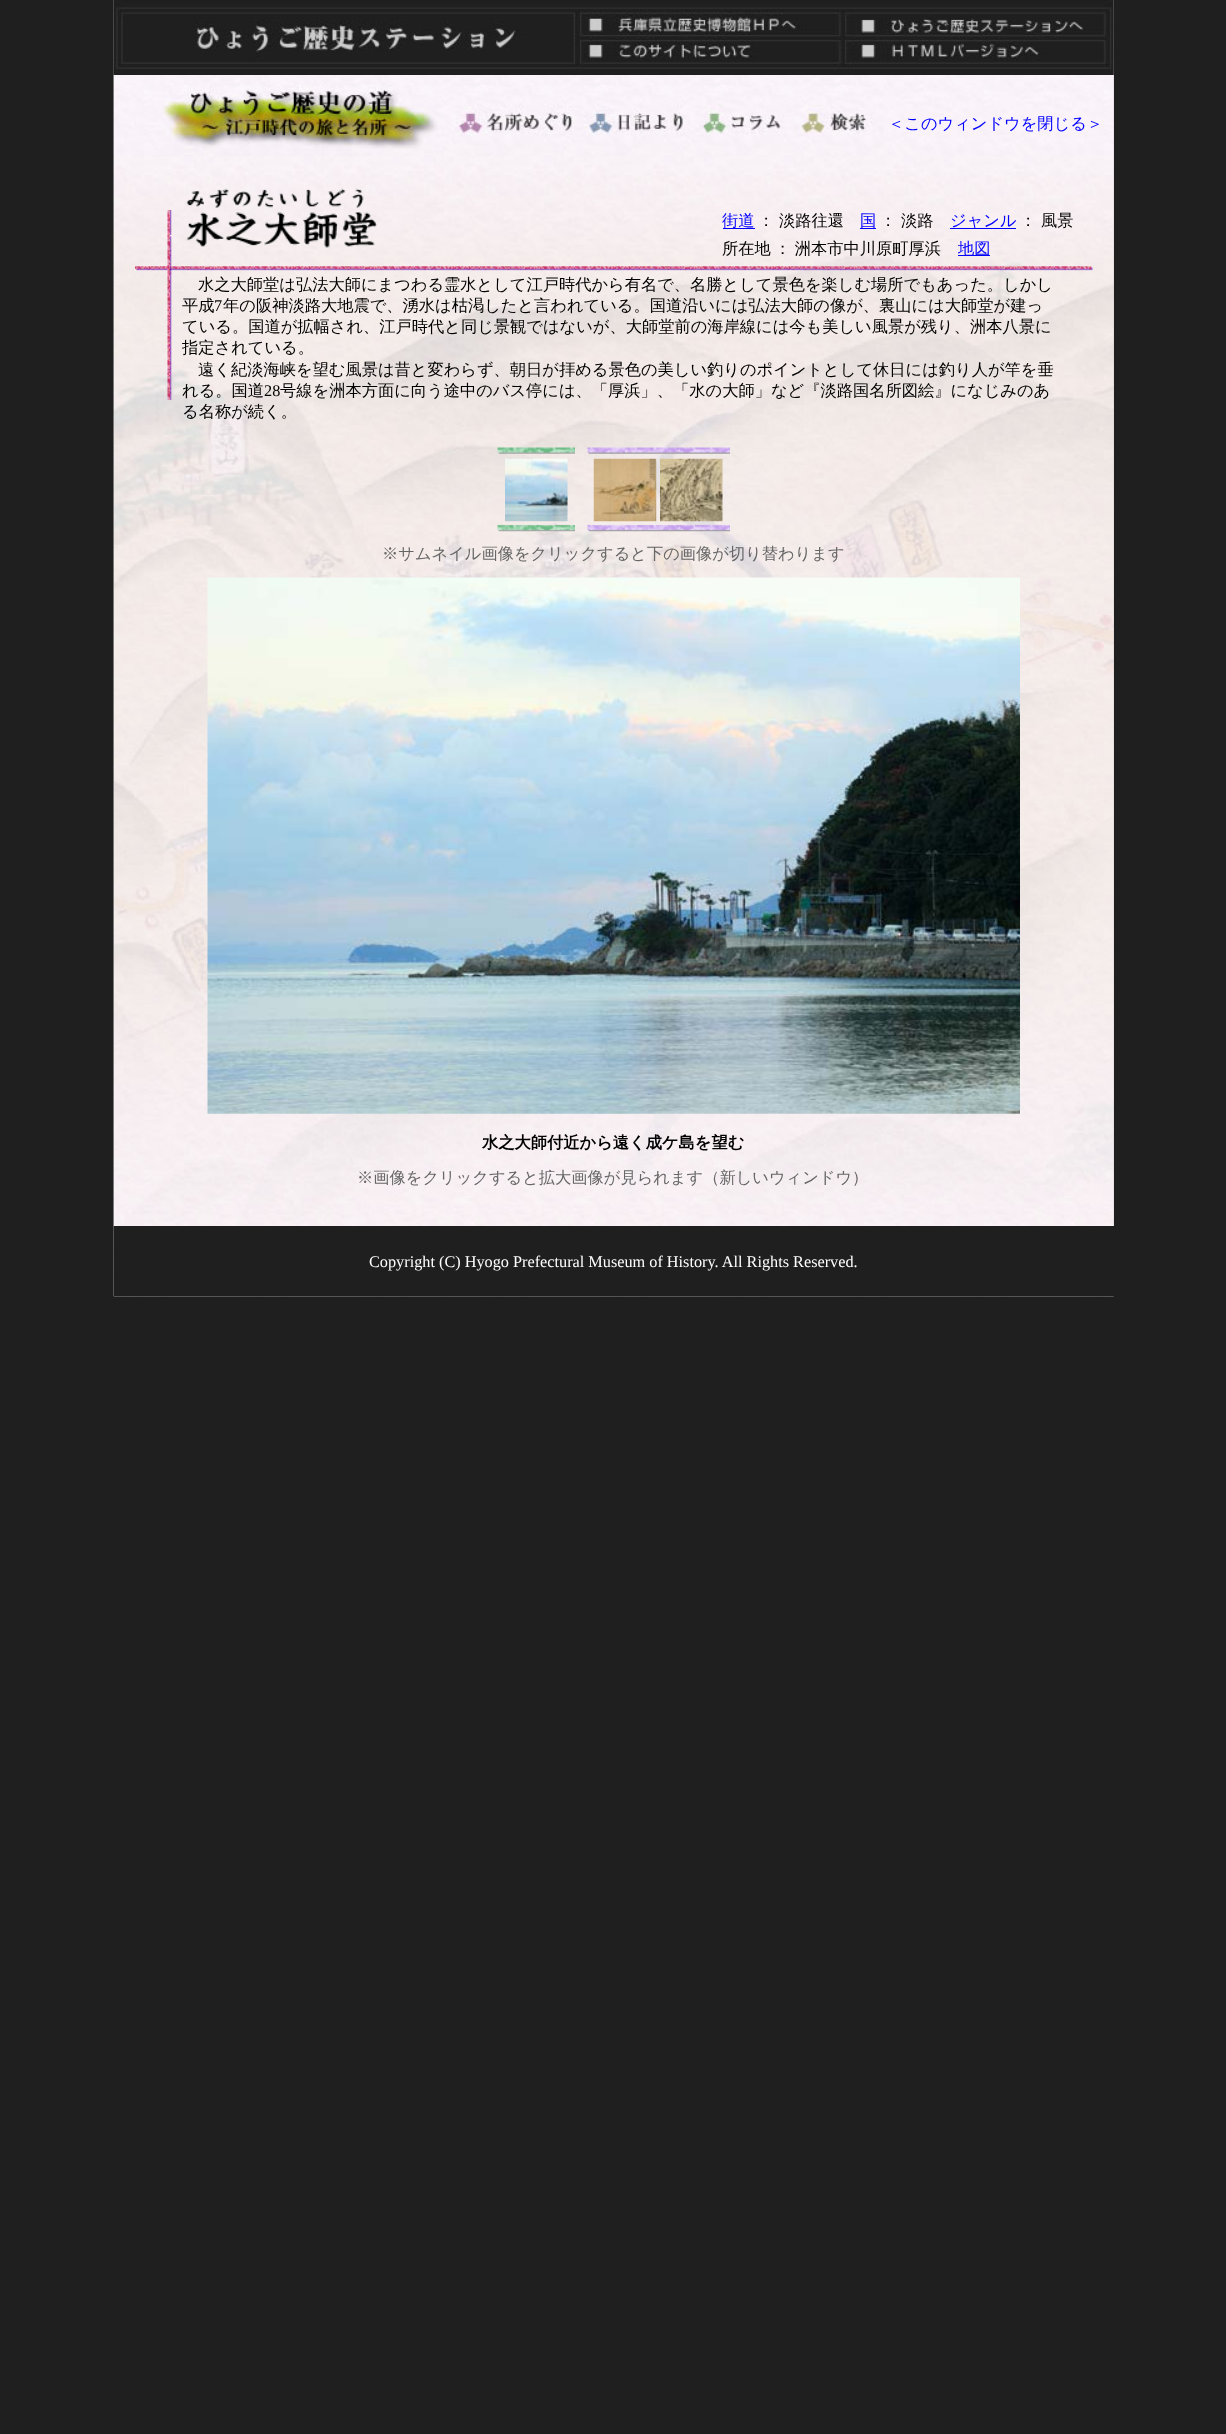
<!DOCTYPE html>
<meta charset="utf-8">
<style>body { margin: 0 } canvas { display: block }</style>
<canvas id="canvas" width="1226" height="2434"></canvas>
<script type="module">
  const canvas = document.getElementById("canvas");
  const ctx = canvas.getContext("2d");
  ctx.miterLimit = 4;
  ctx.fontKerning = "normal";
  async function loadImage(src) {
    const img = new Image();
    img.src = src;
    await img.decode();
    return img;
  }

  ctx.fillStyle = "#1f1f1f";
  ctx.fillRect(0, 0, 1226, 2434);
  ctx.drawImage(await loadImage("img1.png"), 113, 0, 1001, 1297);
  ctx.drawImage(await loadImage("img2.png"), 113, 0, 1001, 75);
  ctx.drawImage(await loadImage("img3.png"), 113, 75, 1001, 1152);
  ctx.drawImage(await loadImage("img4.png"), 163, 75, 724, 81);
  ctx.font = "500 16.25px WenQuanYi Zen Hei";
  ctx.fillStyle = "#0000ff";
  ctx.fillText("＜このウィンドウを閉じる＞", 888, 129);
  ctx.drawImage(await loadImage("img5.png"), 186, 188, 192, 60);
  ctx.drawImage(await loadImage("img6.png"), 167, 210, 5, 53);
  ctx.fillRect(723, 228, 32, 1);
  ctx.fillText("街道", 722, 226);
  ctx.fillStyle = "#000000";
  ctx.fillText("： 淡路往還", 758, 226);
  ctx.fillStyle = "#0000ff";
  ctx.fillText("国", 860, 226);
  ctx.fillRect(860, 228, 16, 1);
  ctx.fillStyle = "#000000";
  ctx.fillText("： 淡路", 880, 226);
  ctx.fillStyle = "#0000ff";
  ctx.fillText("ジャンル", 950, 226);
  ctx.fillRect(950, 228, 66, 1);
  ctx.fillStyle = "#000000";
  ctx.fillText("： 風景", 1020, 226);
  ctx.wordSpacing = "-1px";
  ctx.fillText("所在地 ： 洲本市中川原町厚浜", 722, 254);
  ctx.fillStyle = "#0000ff";
  ctx.fillRect(958, 255, 32, 1);
  ctx.wordSpacing = "0px";
  ctx.fillText("地図", 958, 254);
  ctx.drawImage(await loadImage("img7.png"), 135, 262, 958, 138);
  ctx.fillStyle = "#000000";
  ctx.fillText("水之大師堂は弘法大師にまつわる霊水として江戸時代から有名で、名勝として景色を楽しむ場所でもあった。しかし", 198, 290);
  ctx.fillText("平成", 182, 311);
  ctx.font = "16.25px Liberation Serif";
  ctx.fillText("7", 214, 311);
  ctx.font = "500 16.25px WenQuanYi Zen Hei";
  ctx.fillText("年の阪神淡路大地震で、湧水は枯渇したと言われている。国道沿いには弘法大師の像が、裏山には大師堂が建っ", 223, 311);
  ctx.fillText("ている。国道が拡幅され、江戸時代と同じ景観ではないが、大師堂前の海岸線には今も美しい風景が残り、洲本八景に", 182, 332);
  ctx.fillText("指定されている。", 182, 353);
  ctx.fillText("遠く紀淡海峡を望む風景は昔と変わらず、朝日が拝める景色の美しい釣りのポイントとして休日には釣り人が竿を垂", 198, 375);
  ctx.fillText("れる。国道", 182, 396);
  ctx.font = "16.25px Liberation Serif";
  ctx.fillText("28", 264, 396);
  ctx.font = "500 16.25px WenQuanYi Zen Hei";
  ctx.fillText("号線を洲本方面に向う途中のバス停には、「厚浜」、「水の大師」など『淡路国名所図絵』になじみのあ", 280, 396);
  ctx.fillText("る名称が続く。", 182, 417);
  ctx.drawImage(await loadImage("img8.png"), 497, 447, 78, 85);
  ctx.drawImage(await loadImage("img9.png"), 505, 458, 63, 64);
  ctx.drawImage(await loadImage("img10.png"), 587, 447, 143, 85);
  ctx.drawImage(await loadImage("img11.png"), 593, 458, 64, 64);
  ctx.drawImage(await loadImage("img12.png"), 660, 458, 63, 64);
  ctx.fillStyle = "#666666";
  ctx.fillText("※サムネイル画像をクリックすると下の画像が切り替わります", 382, 559);
  ctx.drawImage(await loadImage("img13.png"), 207, 577, 813, 537);
  ctx.font = "bold 16.25px WenQuanYi Zen Hei";
  ctx.fillStyle = "#000000";
  ctx.fillText("水之大師付近から遠く成ケ島を望む", 482, 1148);
  ctx.font = "500 16.25px WenQuanYi Zen Hei";
  ctx.fillStyle = "#666666";
  ctx.fillText("※画像をクリックすると拡大画像が見られます（新しいウィンドウ）", 357, 1183);
  ctx.fillStyle = "#1f1f1f";
  ctx.fillRect(114, 1226, 1000, 70);
  ctx.font = "16.25px Liberation Serif";
  ctx.fillStyle = "#ffffff";
  ctx.fillText("Copyright (C) Hyogo Prefectural Museum of History. All Rights Reserved.", 369, 1267);
</script>
